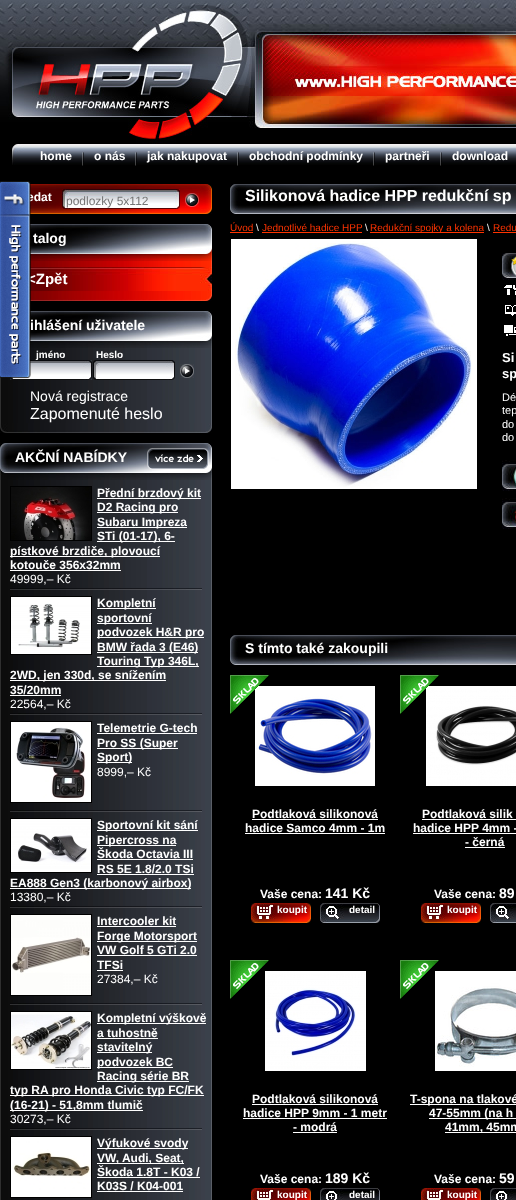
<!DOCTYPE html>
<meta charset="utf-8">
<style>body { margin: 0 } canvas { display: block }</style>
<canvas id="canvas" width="516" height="1200"></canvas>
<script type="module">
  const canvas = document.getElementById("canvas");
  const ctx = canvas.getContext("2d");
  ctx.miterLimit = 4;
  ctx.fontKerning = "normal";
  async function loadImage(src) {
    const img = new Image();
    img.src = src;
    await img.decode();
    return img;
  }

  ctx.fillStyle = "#000000";
  ctx.fillRect(0, 0, 516, 1200);
  ctx.drawImage(await loadImage("img1.png"), 0, 0, 249, 1);
  ctx.drawImage(await loadImage("img2.png"), 0, 1, 249, 143);
  ctx.drawImage(await loadImage("img3.png"), 249, 0, 267, 128);
  ctx.drawImage(await loadImage("img4.png"), 12, 144, 504, 21);
  ctx.font = "bold 12px Liberation Sans";
  ctx.fillStyle = "#ffffff";
  ctx.fillText("home", 40, 160);
  ctx.drawImage(await loadImage("img5.png"), 82, 152, 2, 14);
  ctx.fillText("o nás", 94, 160);
  ctx.drawImage(await loadImage("img5.png"), 135, 152, 2, 14);
  ctx.fillText("jak nakupovat", 147, 160);
  ctx.drawImage(await loadImage("img5.png"), 237, 152, 2, 14);
  ctx.fillText("obchodní podmínky", 249, 160);
  ctx.drawImage(await loadImage("img5.png"), 373, 152, 2, 14);
  ctx.fillText("partneři", 385, 160);
  ctx.drawImage(await loadImage("img5.png"), 440, 152, 2, 14);
  ctx.fillText("download", 452, 160);
  ctx.drawImage(await loadImage("img7.png"), 29, 184, 183, 30);
  ctx.fillText("edat", 27, 201);
  ctx.drawImage(await loadImage("img10.png"), 30, 261, 182, 6);
  ctx.drawImage(await loadImage("img11.png"), 29, 224, 183, 37);
  ctx.drawImage(await loadImage("img12.png"), 30, 267, 182, 24);
  ctx.font = "bold 15px Liberation Sans";
  ctx.fillText("<Zpět", 27, 284);
  ctx.drawImage(await loadImage("img13.png"), 30, 291, 182, 10);
  ctx.drawImage(await loadImage("img14.png"), 0, 348, 212, 75);
  ctx.drawImage(await loadImage("img15.png"), 29, 311, 183, 37);
  ctx.font = "bold 14px Liberation Sans";
  ctx.fillText("ihlášení uživatele", 30, 330);
  ctx.font = "bold 10px Liberation Sans";
  ctx.fillText("jméno", 36, 358);
  ctx.drawImage(await loadImage("img16.png"), 10, 360, 82, 20);
  ctx.drawImage(await loadImage("img6.png"), 0, 181, 31, 198);
  ctx.drawImage(await loadImage("img8.png"), 62, 189, 118, 20);
  ctx.font = "12px Liberation Sans";
  ctx.fillStyle = "#757575";
  ctx.fillText("podlozky 5x112", 66, 205);
  ctx.drawImage(await loadImage("img9.png"), 185, 193, 14, 14);
  ctx.font = "bold 14px Liberation Sans";
  ctx.fillStyle = "#ffffff";
  ctx.fillText("talog", 33, 243);
  ctx.font = "bold 10px Liberation Sans";
  ctx.fillText("Heslo", 96, 358);
  ctx.drawImage(await loadImage("img16.png"), 93, 360, 82, 20);
  ctx.drawImage(await loadImage("img17.png"), 180, 364, 14, 14);
  ctx.font = "14px Liberation Sans";
  ctx.fillText("Nová registrace", 30, 401);
  ctx.font = "16px Liberation Sans";
  ctx.fillText("Zapomenuté heslo", 30, 419);
  ctx.drawImage(await loadImage("img18.png"), 0, 423, 212, 10);
  ctx.drawImage(await loadImage("img19.png"), 0, 480, 212, 720);
  ctx.drawImage(await loadImage("img20.png"), 0, 443, 212, 37);
  ctx.font = "bold 14px Liberation Sans";
  ctx.fillText("AKČNÍ NABÍDKY", 15, 462);
  ctx.drawImage(await loadImage("img21.png"), 147, 448, 62, 22);
  ctx.strokeStyle = "#000000";
  ctx.strokeRect(10.5, 486.5, 81, 54);
  ctx.drawImage(await loadImage("img22.png"), 11, 487, 80, 53);
  ctx.fillRect(97, 498, 104, 1);
  ctx.font = "bold 12px Liberation Sans";
  ctx.fillText("Přední brzdový kit", 97, 497);
  ctx.fillRect(97, 512, 81, 1);
  ctx.fillText("D2 Racing pro", 97, 511);
  ctx.fillRect(97, 527, 90, 1);
  ctx.fillText("Subaru Impreza", 97, 526);
  ctx.fillRect(97, 541, 78, 1);
  ctx.fillText("STi (01-17), 6-", 97, 540);
  ctx.fillRect(10, 556, 150, 1);
  ctx.fillText("pístkové brzdiče, plovoucí", 10, 555);
  ctx.fillText("kotouče 356x32mm", 10, 569);
  ctx.fillRect(10, 570, 111, 1);
  ctx.font = "12px Liberation Sans";
  ctx.fillText("49999,– Kč", 10, 583);
  ctx.drawImage(await loadImage("img23.png"), 10, 588, 192, 2);
  ctx.strokeRect(10.5, 596.5, 81, 58);
  ctx.drawImage(await loadImage("img24.png"), 11, 597, 80, 57);
  ctx.fillRect(97, 608, 59, 1);
  ctx.font = "bold 12px Liberation Sans";
  ctx.fillText("Kompletní", 97, 607);
  ctx.fillRect(97, 623, 55, 1);
  ctx.fillText("sportovní", 97, 622);
  ctx.fillRect(97, 637, 107, 1);
  ctx.fillText("podvozek H&R pro", 97, 636);
  ctx.fillRect(97, 652, 101, 1);
  ctx.fillText("BMW řada 3 (E46)", 97, 651);
  ctx.fillRect(97, 666, 102, 1);
  ctx.fillText("Touring Typ 346L,", 97, 665);
  ctx.fillRect(10, 680, 156, 1);
  ctx.fillText("2WD, jen 330d, se snížením", 10, 679);
  ctx.fillText("35/20mm", 10, 694);
  ctx.fillRect(10, 695, 51, 1);
  ctx.font = "12px Liberation Sans";
  ctx.fillText("22564,– Kč", 10, 708);
  ctx.drawImage(await loadImage("img23.png"), 10, 713, 192, 2);
  ctx.strokeRect(10.5, 721.5, 81, 81);
  ctx.drawImage(await loadImage("img25.png"), 11, 722, 80, 80);
  ctx.font = "bold 12px Liberation Sans";
  ctx.fillText("Telemetrie G-tech", 97, 732);
  ctx.fillRect(97, 733, 100, 1);
  ctx.fillRect(97, 748, 81, 1);
  ctx.fillText("Pro SS (Super", 97, 747);
  ctx.fillRect(97, 762, 35, 1);
  ctx.fillText("Sport)", 97, 761);
  ctx.font = "12px Liberation Sans";
  ctx.fillText("8999,– Kč", 97, 776);
  ctx.drawImage(await loadImage("img23.png"), 10, 810, 192, 2);
  ctx.strokeRect(10.5, 818.5, 81, 54);
  ctx.drawImage(await loadImage("img26.png"), 11, 819, 80, 53);
  ctx.fillRect(97, 830, 101, 1);
  ctx.font = "bold 12px Liberation Sans";
  ctx.fillText("Sportovní kit sání", 97, 829);
  ctx.fillRect(97, 845, 79, 1);
  ctx.fillText("Pipercross na", 97, 844);
  ctx.fillText("Škoda Octavia III", 97, 858);
  ctx.fillRect(97, 859, 96, 1);
  ctx.fillText("RS 5E 1.8/2.0 TSi", 97, 873);
  ctx.fillRect(97, 874, 97, 1);
  ctx.fillRect(10, 888, 181, 1);
  ctx.fillText("EA888 Gen3 (karbonový airbox)", 10, 887);
  ctx.font = "12px Liberation Sans";
  ctx.fillText("13380,– Kč", 10, 901);
  ctx.drawImage(await loadImage("img23.png"), 10, 906, 192, 2);
  ctx.strokeRect(10.5, 914.5, 81, 81);
  ctx.drawImage(await loadImage("img27.png"), 11, 915, 80, 80);
  ctx.font = "bold 12px Liberation Sans";
  ctx.fillText("Intercooler kit", 97, 925);
  ctx.fillRect(97, 926, 79, 1);
  ctx.fillRect(97, 941, 100, 1);
  ctx.fillText("Forge Motorsport", 97, 940);
  ctx.fillText("VW Golf 5 GTi 2.0", 97, 954);
  ctx.fillRect(97, 955, 100, 1);
  ctx.fillText("TFSi", 97, 969);
  ctx.fillRect(97, 970, 26, 1);
  ctx.font = "12px Liberation Sans";
  ctx.fillText("27384,– Kč", 97, 983);
  ctx.drawImage(await loadImage("img23.png"), 10, 1003, 192, 2);
  ctx.strokeRect(10.5, 1011.5, 81, 58);
  ctx.drawImage(await loadImage("img28.png"), 11, 1012, 80, 57);
  ctx.fillRect(97, 1023, 109, 1);
  ctx.font = "bold 12px Liberation Sans";
  ctx.fillText("Kompletní výškově", 97, 1022);
  ctx.fillText("a tuhostně", 97, 1037);
  ctx.fillRect(97, 1038, 61, 1);
  ctx.fillRect(97, 1052, 55, 1);
  ctx.fillText("stavitelný", 97, 1051);
  ctx.fillRect(97, 1067, 76, 1);
  ctx.fillText("podvozek BC", 97, 1066);
  ctx.fillRect(97, 1081, 92, 1);
  ctx.fillText("Racing série BR", 97, 1080);
  ctx.fillRect(10, 1095, 194, 1);
  ctx.fillText("typ RA pro Honda Civic typ FC/FK", 10, 1094);
  ctx.fillRect(10, 1110, 133, 1);
  ctx.fillText("(16-21) - 51,8mm tlumič", 10, 1109);
  ctx.font = "12px Liberation Sans";
  ctx.fillText("30273,– Kč", 10, 1123);
  ctx.drawImage(await loadImage("img23.png"), 10, 1128, 192, 2);
  ctx.strokeRect(10.5, 1136.5, 81, 61);
  ctx.drawImage(await loadImage("img29.png"), 11, 1137, 80, 60);
  ctx.fillRect(97, 1148, 91, 1);
  ctx.font = "bold 12px Liberation Sans";
  ctx.fillText("Výfukové svody", 97, 1147);
  ctx.fillRect(97, 1163, 87, 1);
  ctx.fillText("VW, Audi, Seat,", 97, 1162);
  ctx.fillText("Škoda 1.8T - K03 /", 97, 1176);
  ctx.fillRect(97, 1177, 103, 1);
  ctx.fillText("K03S / K04-001", 97, 1190);
  ctx.fillRect(97, 1191, 86, 1);
  ctx.drawImage(await loadImage("img30.png"), 230, 184, 286, 30);
  ctx.font = "bold 16px Liberation Sans";
  ctx.fillText("Silikonová hadice HPP redukční sp", 245, 201);
  ctx.font = "10px Liberation Sans";
  ctx.fillStyle = "#ff3300";
  ctx.fillText("Úvod", 230, 231);
  ctx.fillRect(230, 232, 23, 1);
  ctx.fillStyle = "#ffffff";
  ctx.fillText("\\", 256, 231);
  ctx.fillStyle = "#ff3300";
  ctx.fillText("Jednotlivé hadice HPP", 262, 231);
  ctx.fillRect(262, 232, 100, 1);
  ctx.fillStyle = "#ffffff";
  ctx.fillText("\\", 365, 231);
  ctx.fillStyle = "#ff3300";
  ctx.fillRect(370, 232, 114, 1);
  ctx.fillText("Redukční spojky a kolena", 370, 231);
  ctx.fillStyle = "#ffffff";
  ctx.fillText("\\", 487, 231);
  ctx.fillStyle = "#ff3300";
  ctx.fillText("Redu", 493, 231);
  ctx.fillRect(493, 232, 23, 1);
  ctx.drawImage(await loadImage("img31.png"), 231, 239, 246, 250);
  ctx.drawImage(await loadImage("img32.png"), 502, 253, 14, 27);
  ctx.drawImage(await loadImage("img33.png"), 504, 285, 12, 10);
  ctx.drawImage(await loadImage("img34.png"), 505, 305, 11, 11);
  ctx.drawImage(await loadImage("img35.png"), 504, 325, 12, 11);
  ctx.wordSpacing = "14px";
  ctx.font = "bold 13px Liberation Sans";
  ctx.fillStyle = "#ffffff";
  ctx.fillText("Si", 502, 362);
  ctx.wordSpacing = "0px";
  ctx.fillText("sp", 502, 378);
  ctx.wordSpacing = "6px";
  ctx.font = "11px Liberation Sans";
  ctx.fillText("Dé", 502, 401);
  ctx.wordSpacing = "4px";
  ctx.fillText("tep", 502, 414);
  ctx.wordSpacing = "2px";
  ctx.fillText("do", 502, 428);
  ctx.wordSpacing = "0px";
  ctx.fillText("do", 502, 441);
  ctx.drawImage(await loadImage("img36.png"), 502, 460, 14, 31);
  ctx.drawImage(await loadImage("img37.png"), 502, 498, 14, 31);
  ctx.drawImage(await loadImage("img30.png"), 230, 635, 286, 30);
  ctx.font = "bold 14px Liberation Sans";
  ctx.fillText("S tímto také zakoupili", 245, 653);
  ctx.drawImage(await loadImage("img39.png"), 255, 686, 120, 100);
  ctx.drawImage(await loadImage("img38.png"), 230, 675, 39, 39);
  ctx.font = "bold 12px Liberation Sans";
  ctx.fillText("Podtlaková silikonová", 252, 818);
  ctx.fillRect(252, 819, 126, 1);
  ctx.fillText("hadice Samco 4mm - 1m", 245, 832);
  ctx.fillRect(245, 833, 140, 1);
  ctx.fillText("Vaše cena:", 260, 898);
  ctx.font = "bold 14px Liberation Sans";
  ctx.fillText("141 Kč", 325, 898);
  ctx.drawImage(await loadImage("img40.png"), 251, 903, 60, 20);
  ctx.font = "bold 10px Liberation Sans";
  ctx.fillText("koupit", 277, 913);
  ctx.drawImage(await loadImage("img41.png"), 320, 903, 60, 20);
  ctx.fillText("detail", 349, 913);
  ctx.drawImage(await loadImage("img43.png"), 426, 686, 90, 100);
  ctx.drawImage(await loadImage("img42.png"), 400, 675, 39, 39);
  ctx.font = "bold 12px Liberation Sans";
  ctx.fillText("Podtlaková silik", 422, 818);
  ctx.fillRect(422, 819, 94, 1);
  ctx.fillText("hadice HPP 4mm -", 413, 832);
  ctx.fillRect(413, 833, 103, 1);
  ctx.fillText("- černá", 465, 846);
  ctx.fillRect(465, 847, 40, 1);
  ctx.fillText("Vaše cena:", 434, 898);
  ctx.font = "bold 14px Liberation Sans";
  ctx.fillText("89", 499, 898);
  ctx.drawImage(await loadImage("img40.png"), 421, 903, 60, 20);
  ctx.font = "bold 10px Liberation Sans";
  ctx.fillText("koupit", 447, 913);
  ctx.drawImage(await loadImage("img44.png"), 490, 903, 26, 20);
  ctx.drawImage(await loadImage("img46.png"), 265, 971, 101, 100);
  ctx.drawImage(await loadImage("img45.png"), 230, 960, 39, 39);
  ctx.font = "bold 12px Liberation Sans";
  ctx.fillText("Podtlaková silikonová", 252, 1103);
  ctx.fillRect(252, 1104, 126, 1);
  ctx.fillText("hadice HPP 9mm - 1 metr", 243, 1117);
  ctx.fillRect(243, 1118, 144, 1);
  ctx.fillText("- modrá", 293, 1131);
  ctx.fillRect(293, 1132, 44, 1);
  ctx.fillText("Vaše cena:", 260, 1183);
  ctx.font = "bold 14px Liberation Sans";
  ctx.fillText("189 Kč", 325, 1183);
  ctx.drawImage(await loadImage("img47.png"), 251, 1188, 60, 12);
  ctx.font = "bold 10px Liberation Sans";
  ctx.fillText("koupit", 277, 1198);
  ctx.drawImage(await loadImage("img48.png"), 320, 1188, 60, 12);
  ctx.fillText("detail", 349, 1198);
  ctx.drawImage(await loadImage("img50.png"), 435, 971, 81, 100);
  ctx.drawImage(await loadImage("img49.png"), 400, 960, 39, 39);
  ctx.fillRect(410, 1104, 106, 1);
  ctx.font = "bold 12px Liberation Sans";
  ctx.fillText("T-spona na tlakové", 410, 1103);
  ctx.fillRect(429, 1118, 87, 1);
  ctx.fillText("47-55mm (na h", 429, 1117);
  ctx.fillRect(445, 1132, 71, 1);
  ctx.fillText("41mm, 45mm", 445, 1131);
  ctx.fillText("Vaše cena:", 434, 1183);
  ctx.font = "bold 14px Liberation Sans";
  ctx.fillText("59", 499, 1183);
  ctx.drawImage(await loadImage("img47.png"), 421, 1188, 60, 12);
  ctx.font = "bold 10px Liberation Sans";
  ctx.fillText("koupit", 447, 1198);
  ctx.drawImage(await loadImage("img51.png"), 490, 1188, 26, 12);
</script>
